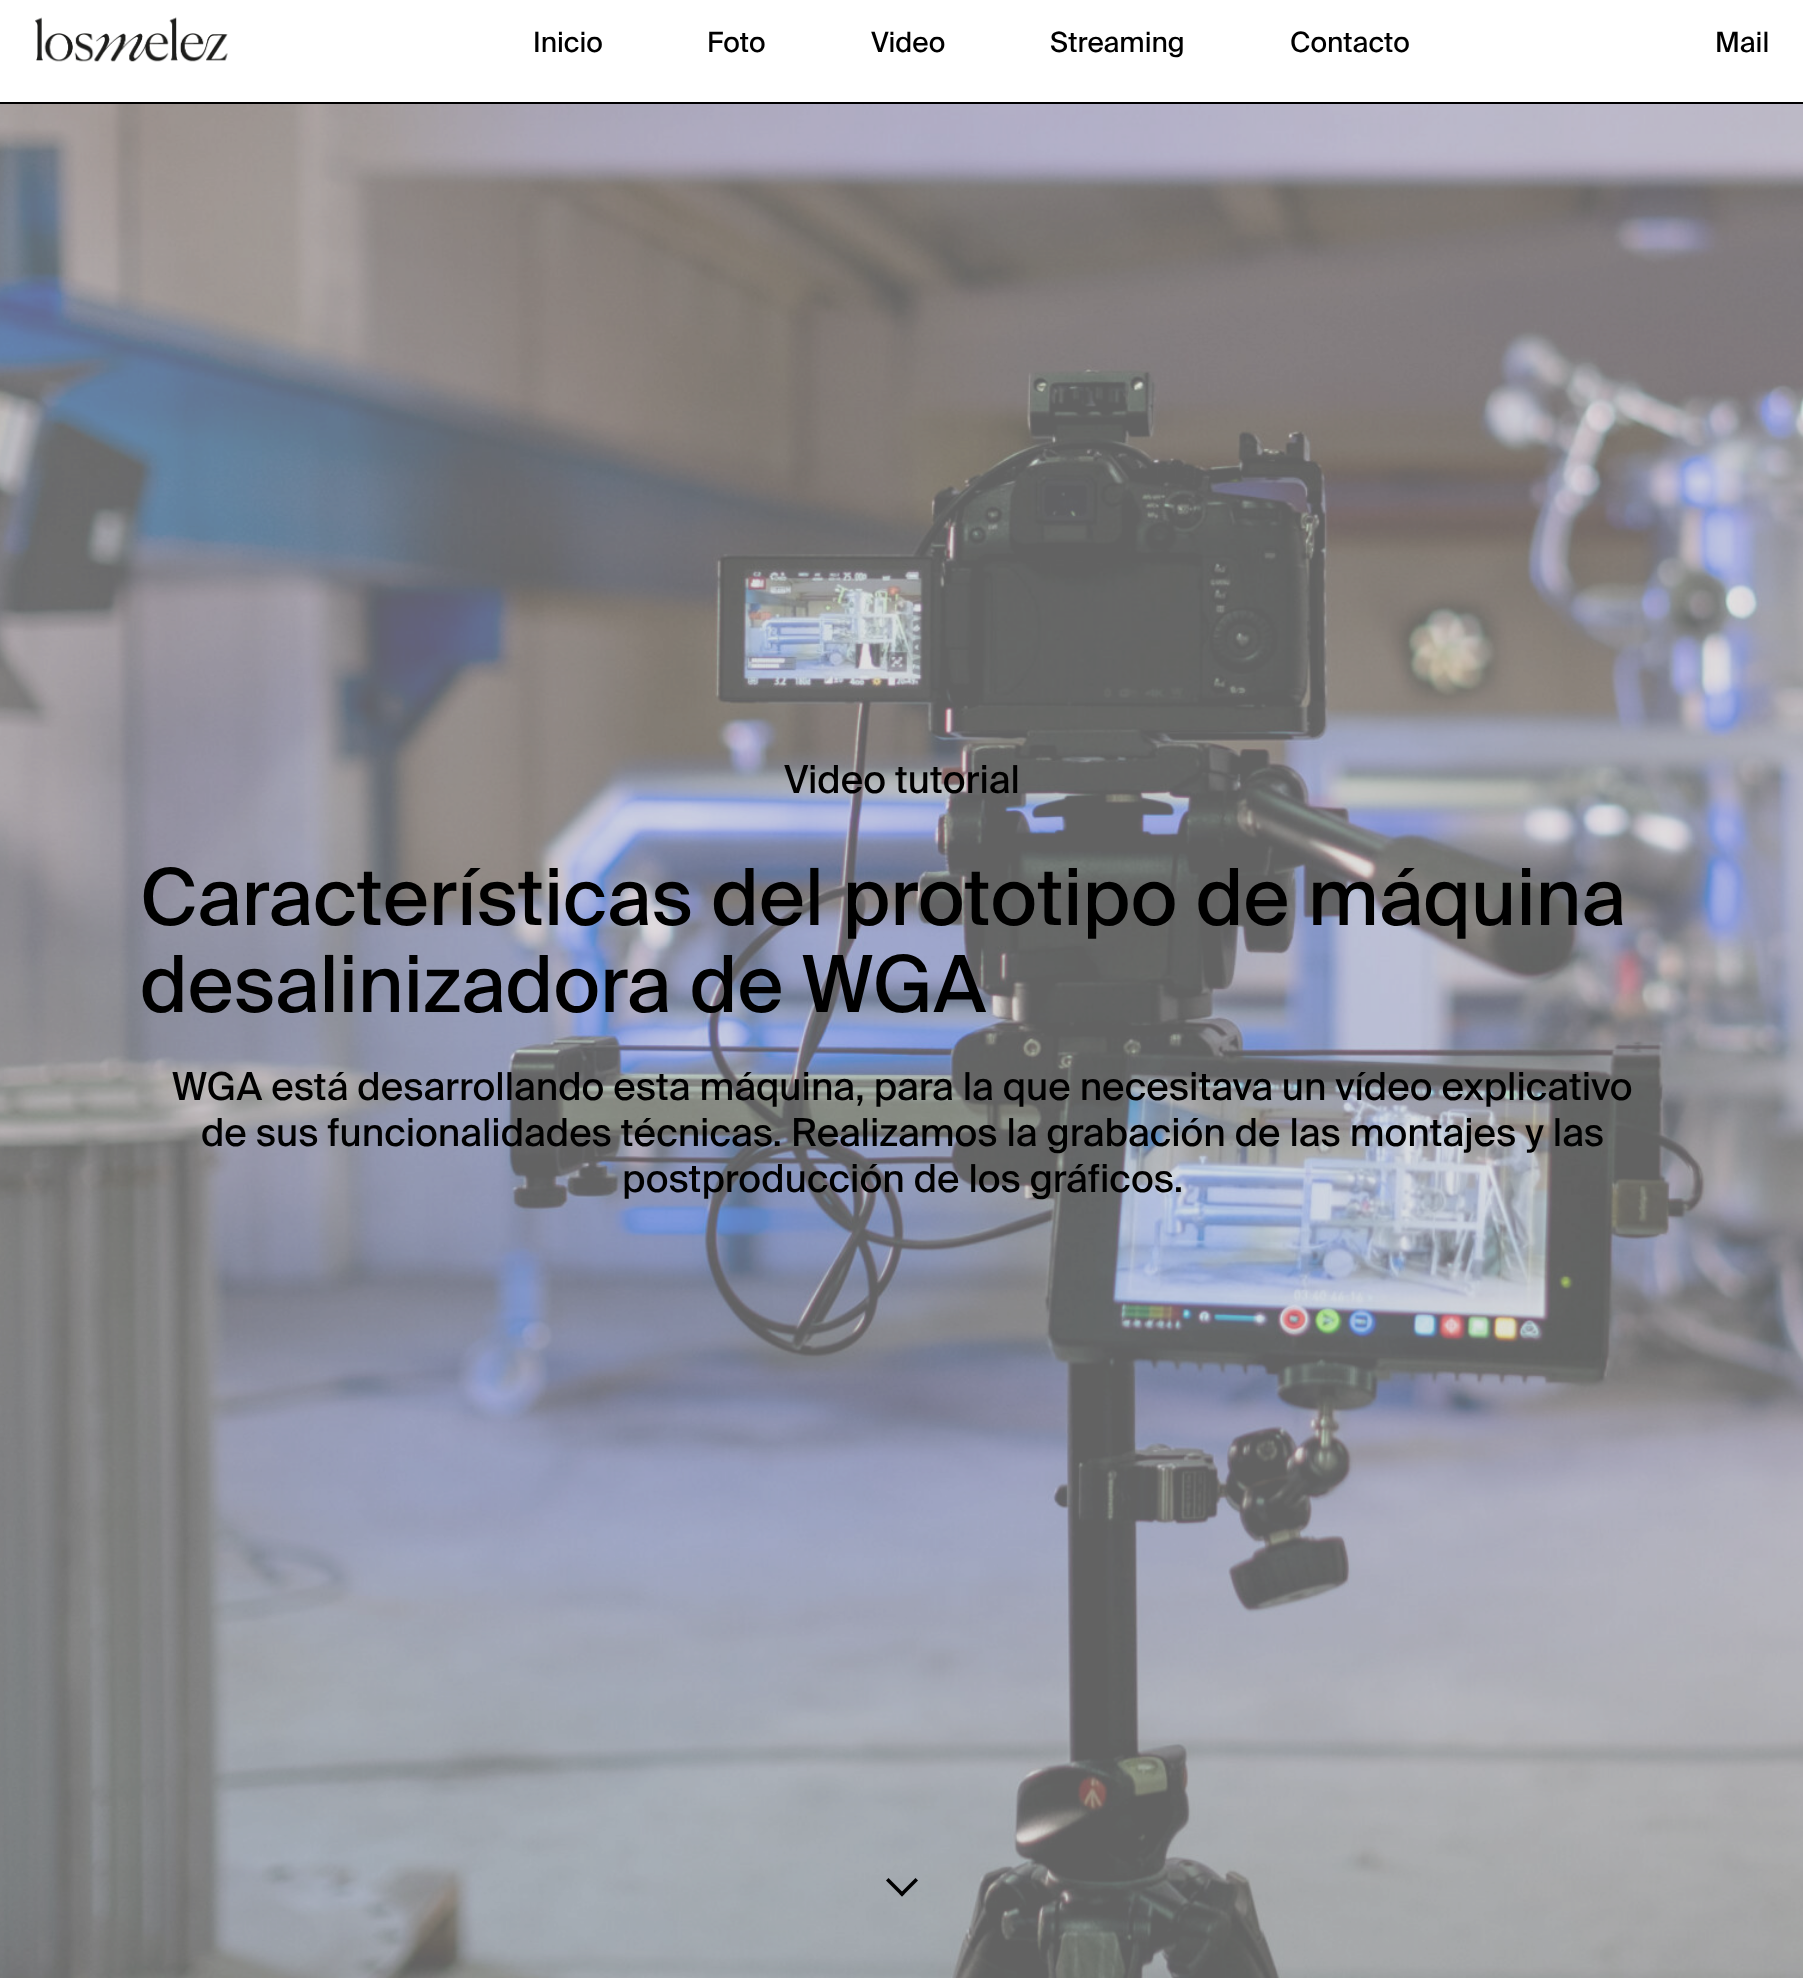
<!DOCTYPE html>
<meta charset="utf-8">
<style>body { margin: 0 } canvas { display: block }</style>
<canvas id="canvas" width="1803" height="1978"></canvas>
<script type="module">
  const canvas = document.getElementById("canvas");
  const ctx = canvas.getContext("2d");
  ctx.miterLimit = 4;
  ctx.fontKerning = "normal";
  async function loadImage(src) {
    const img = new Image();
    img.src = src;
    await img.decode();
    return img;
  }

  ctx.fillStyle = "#ffffff";
  ctx.fillRect(0, 0, 1803, 1978);
  ctx.fillStyle = "#000000";
  ctx.fillRect(0, 102, 1803, 2);
  ctx.drawImage(await loadImage("img1.png"), 35, 17, 193, 45);
  ctx.font = "28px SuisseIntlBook";
  ctx.fillText("Inicio", 533, 52);
  ctx.fillText("Foto", 707, 52);
  ctx.fillText("Video", 871, 52);
  ctx.fillText("Streaming", 1050, 52);
  ctx.fillText("Contacto", 1290, 52);
  ctx.fillText("Mail", 1715, 52);
  ctx.drawImage(await loadImage("img2.png"), 0, 104, 1803, 1874);
  ctx.font = "38.5px SuisseIntlBook";
  ctx.fillText("Video tutorial", 784, 793);
  ctx.font = "78.75px SuisseIntlBook";
  ctx.fillText("Características del prototipo de máquina", 140, 925);
  ctx.fillText("desalinizadora de WGA", 140, 1012);
  ctx.font = "38.5px SuisseIntlBook";
  ctx.fillText("WGA está desarrollando esta máquina, para la que necesitava un vídeo explicativo", 172, 1100);
  ctx.fillText("de sus funcionalidades técnicas. Realizamos la grabación de las montajes y las", 201, 1146);
  ctx.fillText("postproducción de los gráficos.", 622, 1192);
  ctx.beginPath();
  ctx.moveTo(915.5, 1878);
  ctx.lineTo(918, 1880.5);
  ctx.lineTo(902, 1896.5);
  ctx.lineTo(899.5, 1894);
  ctx.closePath();
  ctx.fill();
  ctx.beginPath();
  ctx.moveTo(888.5, 1878);
  ctx.lineTo(904.5, 1894);
  ctx.lineTo(902, 1896.5);
  ctx.lineTo(886, 1880.5);
  ctx.closePath();
  ctx.fill();
</script>
